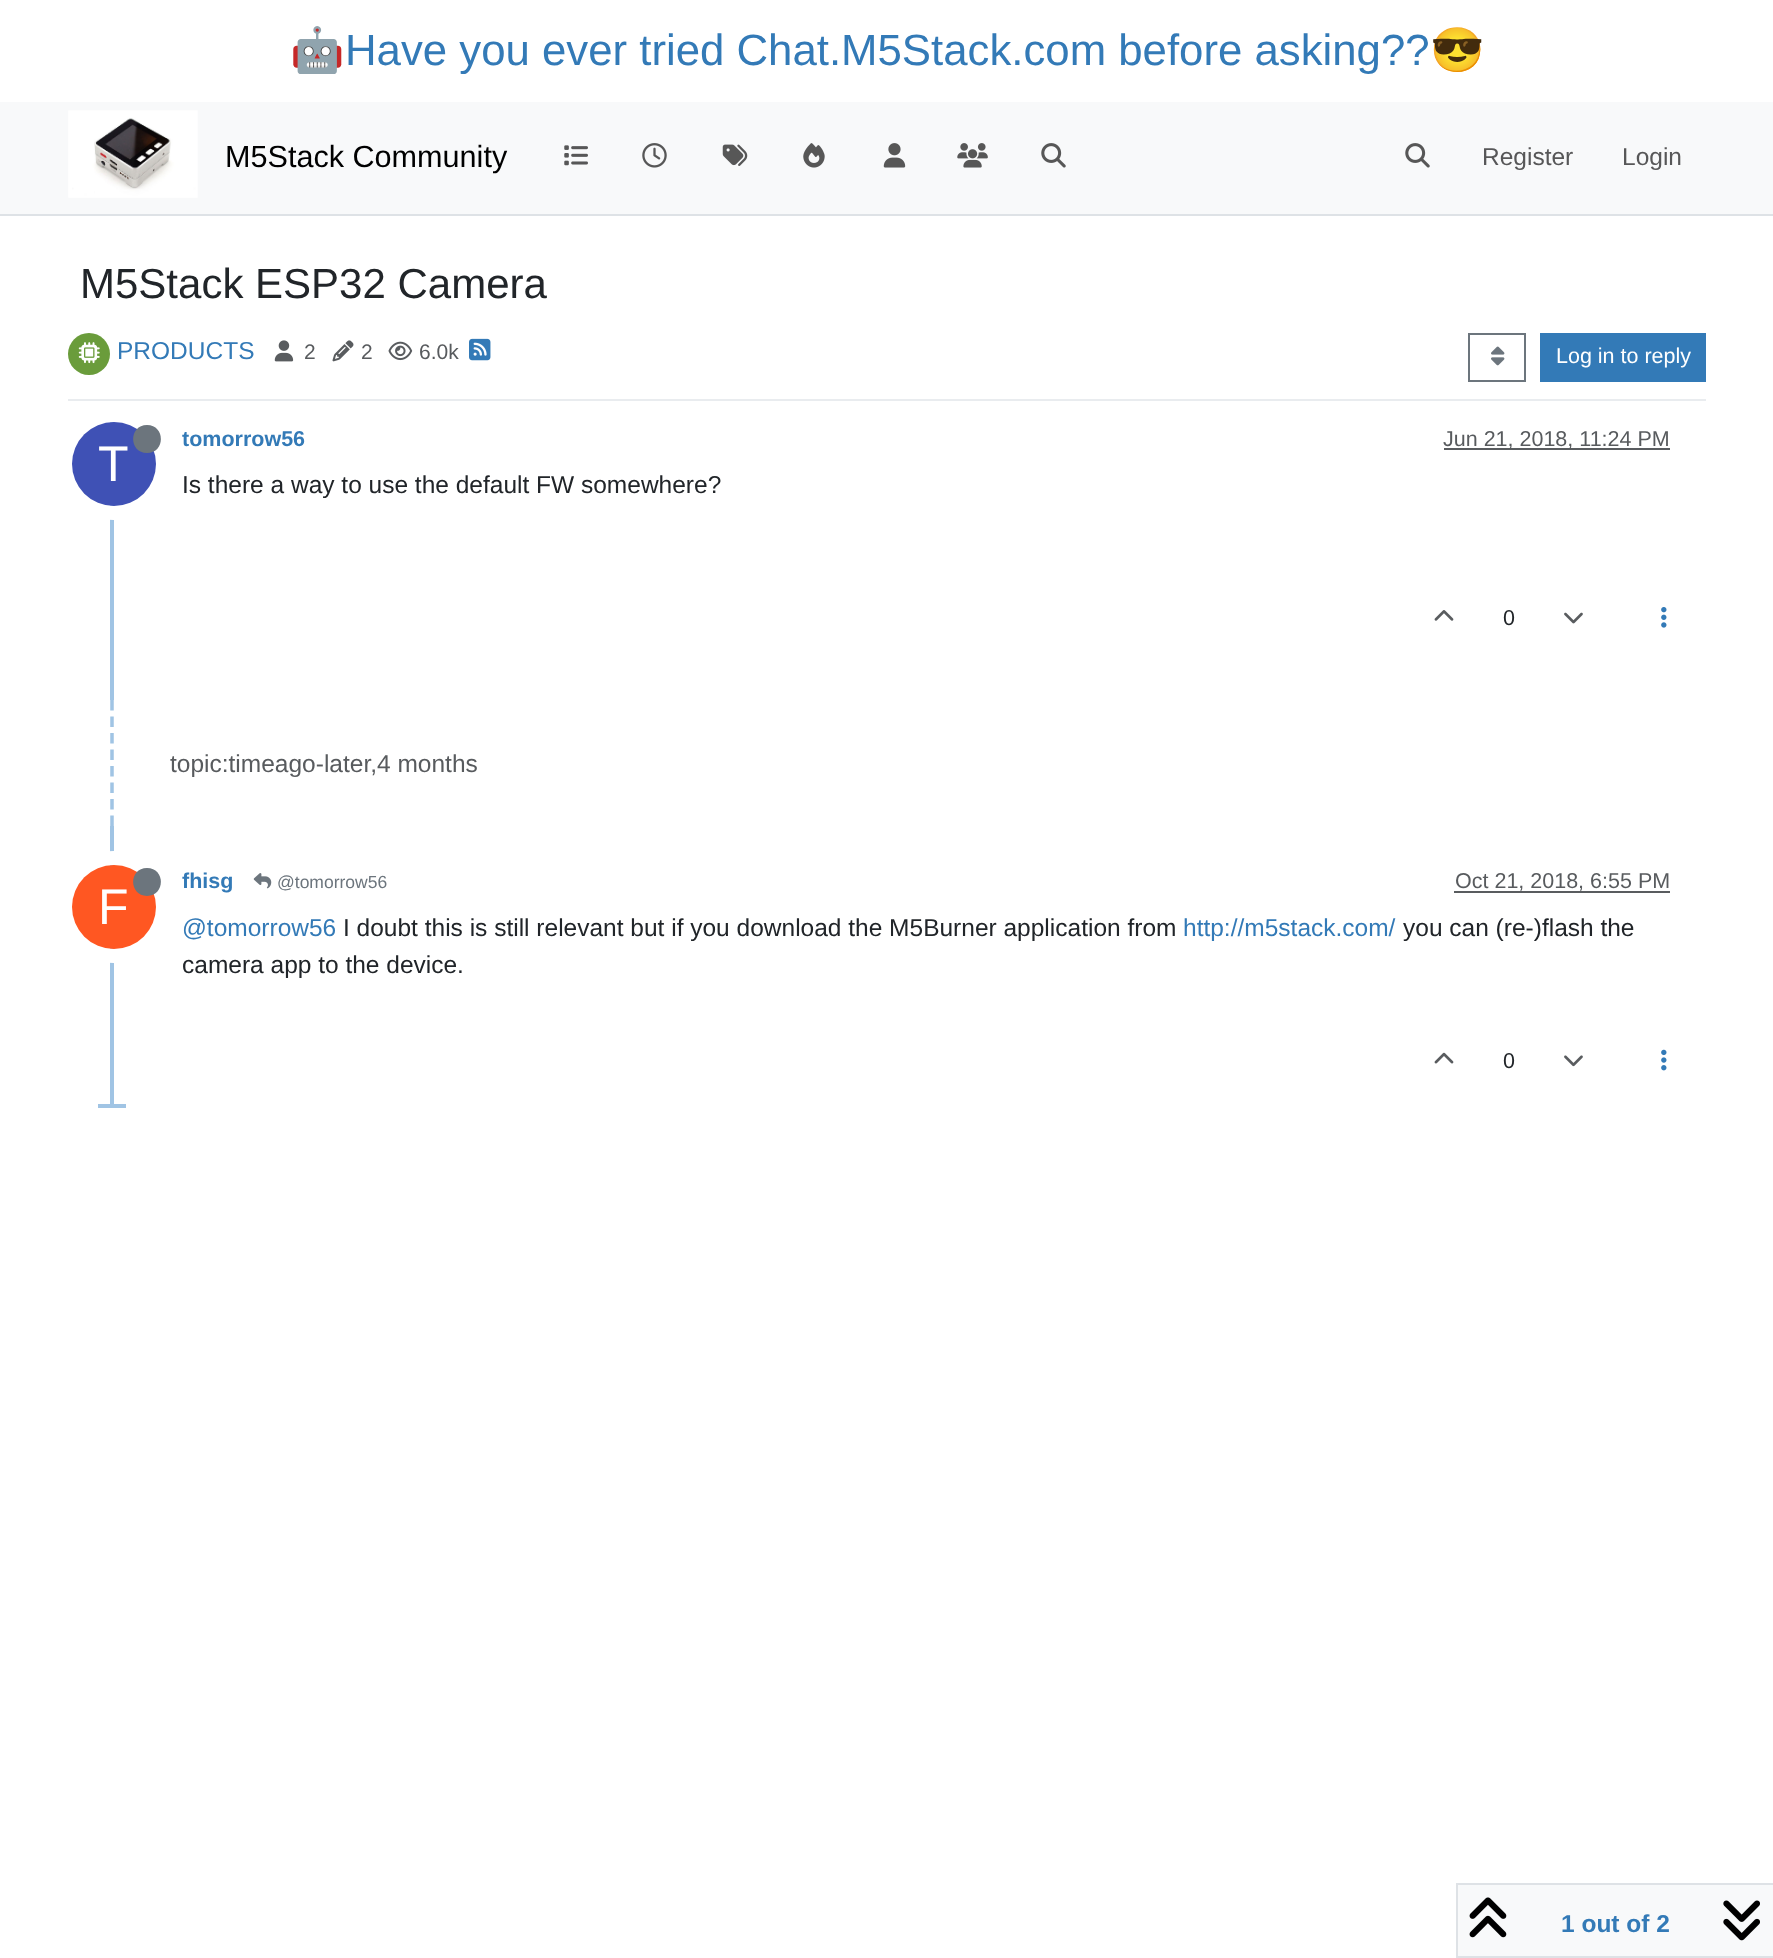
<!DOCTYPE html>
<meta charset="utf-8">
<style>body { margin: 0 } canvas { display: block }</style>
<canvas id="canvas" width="1773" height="1958"></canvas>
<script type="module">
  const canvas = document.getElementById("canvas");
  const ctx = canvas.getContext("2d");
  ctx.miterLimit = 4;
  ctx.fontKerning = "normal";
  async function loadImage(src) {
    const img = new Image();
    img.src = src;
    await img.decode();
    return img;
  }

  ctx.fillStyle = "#ffffff";
  ctx.fillRect(0, 0, 1773, 1958);
  ctx.font = "43.75px Noto Color Emoji";
  ctx.fillStyle = "#337ab7";
  ctx.fillText("🤖", 290, 65);
  ctx.font = "43.75px Liberation Sans";
  ctx.fillText("Have you ever tried Chat.M5Stack.com before asking??", 345, 65);
  ctx.font = "43.75px Noto Color Emoji";
  ctx.fillText("😎", 1430, 65);
  ctx.fillStyle = "#f8f9fa";
  ctx.fillRect(0, 102, 1773, 112);
  ctx.fillStyle = "#dee2e6";
  ctx.fillRect(0, 214, 1773, 2);
  ctx.drawImage(await loadImage("img1.png"), 68, 110, 130, 88);
  ctx.font = "30.6px Liberation Sans";
  ctx.fillStyle = "#000000";
  ctx.fillText("M5Stack Community", 225, 167);
  ctx.drawImage(await loadImage("img2.png"), 564, 145, 24, 21);
  ctx.drawImage(await loadImage("img3.png"), 642, 143, 25, 25);
  ctx.drawImage(await loadImage("img4.png"), 722, 144, 26, 22);
  ctx.drawImage(await loadImage("img5.png"), 803, 143, 22, 25);
  ctx.drawImage(await loadImage("img6.png"), 883, 143, 23, 25);
  ctx.drawImage(await loadImage("img7.png"), 957, 143, 31, 25);
  ctx.drawImage(await loadImage("img8.png"), 1041, 143, 25, 25);
  ctx.drawImage(await loadImage("img8.png"), 1405, 143, 25, 25);
  ctx.font = "24.5px Liberation Sans";
  ctx.fillStyle = "#575758";
  ctx.fillText("Register", 1482, 165);
  ctx.fillText("Login", 1622, 165);
  ctx.font = "42px Liberation Sans";
  ctx.fillStyle = "#212529";
  ctx.fillText("M5Stack ESP32 Camera", 80, 298);
  ctx.fillStyle = "#e9ecef";
  ctx.fillRect(68, 399, 1638, 2);
  ctx.fillStyle = "#6a9c3b";
  ctx.beginPath();
  ctx.arc(89, 354, 21, 0, Math.PI * 2);
  ctx.fill();
  ctx.drawImage(await loadImage("img9.png"), 78, 342, 22, 22);
  ctx.font = "24.5px Liberation Sans";
  ctx.fillStyle = "#337ab7";
  ctx.fillText("PRODUCTS", 117, 359);
  ctx.drawImage(await loadImage("img10.png"), 274, 340, 20, 22);
  ctx.font = "21px Liberation Sans";
  ctx.fillStyle = "#585b5e";
  ctx.fillText("2", 304, 359);
  ctx.drawImage(await loadImage("img11.png"), 332, 340, 22, 22);
  ctx.fillText("2", 361, 359);
  ctx.drawImage(await loadImage("img12.png"), 388, 341, 25, 20);
  ctx.fillText("6.0k", 419, 359);
  ctx.drawImage(await loadImage("img13.png"), 469, 338, 22, 23);
  ctx.strokeStyle = "#6c757d";
  ctx.lineWidth = 2;
  ctx.strokeRect(1469, 334, 56, 47);
  ctx.drawImage(await loadImage("img14.png"), 1491, 346, 14, 20);
  ctx.fillStyle = "#337ab7";
  ctx.fillRect(1540, 333, 166, 49);
  ctx.font = "21.5px Liberation Sans";
  ctx.fillStyle = "#ffffff";
  ctx.fillText("Log in to reply", 1556, 363);
  ctx.fillStyle = "#a0c4e4";
  ctx.fillRect(110, 418, 4, 282);
  ctx.font = "bold 21.5px Liberation Sans";
  ctx.fillStyle = "#337ab7";
  ctx.fillText("tomorrow56", 182, 446);
  ctx.fillStyle = "#595c5f";
  ctx.fillRect(1444, 448, 226, 2);
  ctx.font = "21.5px Liberation Sans";
  ctx.fillStyle = "#585b5e";
  ctx.fillText("Jun 21, 2018, 11:24 PM", 1443, 446);
  ctx.beginPath();
  ctx.arc(114, 464, 49, 0, Math.PI * 2);
  ctx.strokeStyle = "#ffffff";
  ctx.lineWidth = 14;
  ctx.stroke();
  ctx.fillStyle = "#3f51b5";
  ctx.beginPath();
  ctx.arc(114, 464, 42, 0, Math.PI * 2);
  ctx.fill();
  ctx.fillStyle = "#6c757d";
  ctx.beginPath();
  ctx.moveTo(147, 453);
  ctx.bezierCurveTo(165.5, 453, 165.5, 425, 147, 425);
  ctx.bezierCurveTo(128.5, 425, 128.5, 453, 147, 453);
  ctx.closePath();
  ctx.fill();
  ctx.font = "50px Liberation Sans";
  ctx.fillStyle = "#ffffff";
  ctx.fillText("T", 98, 481);
  ctx.font = "24.5px Liberation Sans";
  ctx.fillStyle = "#212529";
  ctx.fillText("Is there a way to use the default FW somewhere?", 182, 493);
  ctx.drawImage(await loadImage("img15.png"), 1434, 610, 20, 11);
  ctx.font = "21.5px Liberation Sans";
  ctx.fillText("0", 1503, 625);
  ctx.drawImage(await loadImage("img16.png"), 1564, 612, 19, 12);
  ctx.drawImage(await loadImage("img17.png"), 1661, 607, 6, 21);
  ctx.beginPath();
  ctx.moveTo(112, 700);
  ctx.lineTo(112, 826);
  ctx.strokeStyle = "#a0c4e4";
  ctx.lineWidth = 3.5;
  ctx.setLineDash([10.5, 6]);
  ctx.stroke();
  ctx.font = "24.5px Liberation Sans";
  ctx.fillStyle = "#585b5e";
  ctx.fillText("topic:timeago-later,4 months", 170, 772);
  ctx.fillStyle = "#a0c4e4";
  ctx.fillRect(110, 826, 4, 282);
  ctx.font = "bold 21.5px Liberation Sans";
  ctx.fillStyle = "#337ab7";
  ctx.fillText("fhisg", 182, 888);
  ctx.drawImage(await loadImage("img18.png"), 253, 873, 19, 16);
  ctx.font = "17.5px Liberation Sans";
  ctx.fillStyle = "#6c757d";
  ctx.fillText("@tomorrow56", 277, 888);
  ctx.font = "21.5px Liberation Sans";
  ctx.fillStyle = "#585b5e";
  ctx.fillText("Oct 21, 2018, 6:55 PM", 1455, 888);
  ctx.fillStyle = "#595c5f";
  ctx.fillRect(1454, 891, 216, 2);
  ctx.beginPath();
  ctx.arc(114, 907, 49, 0, Math.PI * 2);
  ctx.strokeStyle = "#ffffff";
  ctx.lineWidth = 14;
  ctx.setLineDash([]);
  ctx.stroke();
  ctx.fillStyle = "#ff5722";
  ctx.beginPath();
  ctx.arc(114, 907, 42, 0, Math.PI * 2);
  ctx.fill();
  ctx.fillStyle = "#6c757d";
  ctx.beginPath();
  ctx.moveTo(147, 896);
  ctx.bezierCurveTo(165.5, 895.5, 165.5, 868, 147, 868);
  ctx.bezierCurveTo(128.5, 868, 128.5, 895.5, 147, 896);
  ctx.closePath();
  ctx.fill();
  ctx.font = "50px Liberation Sans";
  ctx.fillStyle = "#ffffff";
  ctx.fillText("F", 98, 924);
  ctx.font = "24.5px Liberation Sans";
  ctx.fillStyle = "#337ab7";
  ctx.fillText("@tomorrow56", 182, 936);
  ctx.fillStyle = "#212529";
  ctx.fillText("I doubt this is still relevant but if you download the M5Burner application from", 343, 936);
  ctx.fillStyle = "#337ab7";
  ctx.fillText("http://m5stack.com/", 1183, 936);
  ctx.fillStyle = "#212529";
  ctx.fillText("you can (re-)flash the", 1403, 936);
  ctx.fillText("camera app to the device.", 182, 973);
  ctx.drawImage(await loadImage("img19.png"), 1434, 1052, 20, 12);
  ctx.font = "21.5px Liberation Sans";
  ctx.fillText("0", 1503, 1068);
  ctx.drawImage(await loadImage("img20.png"), 1564, 1055, 19, 12);
  ctx.drawImage(await loadImage("img21.png"), 1661, 1049, 6, 22);
  ctx.fillStyle = "#a0c4e4";
  ctx.fillRect(98, 1104, 28, 4);
  ctx.fillStyle = "#f8f9fa";
  ctx.beginPath();
  ctx.rect(1457, 1884, 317, 73);
  ctx.fill();
  ctx.strokeStyle = "#dee2e6";
  ctx.lineWidth = 2;
  ctx.stroke();
  ctx.drawImage(await loadImage("img22.png"), 1469, 1897, 38, 41);
  ctx.font = "bold 24.5px Liberation Sans";
  ctx.fillStyle = "#337ab7";
  ctx.fillText("1 out of 2", 1561, 1932);
  ctx.drawImage(await loadImage("img23.png"), 1723, 1900, 37, 41);
</script>
